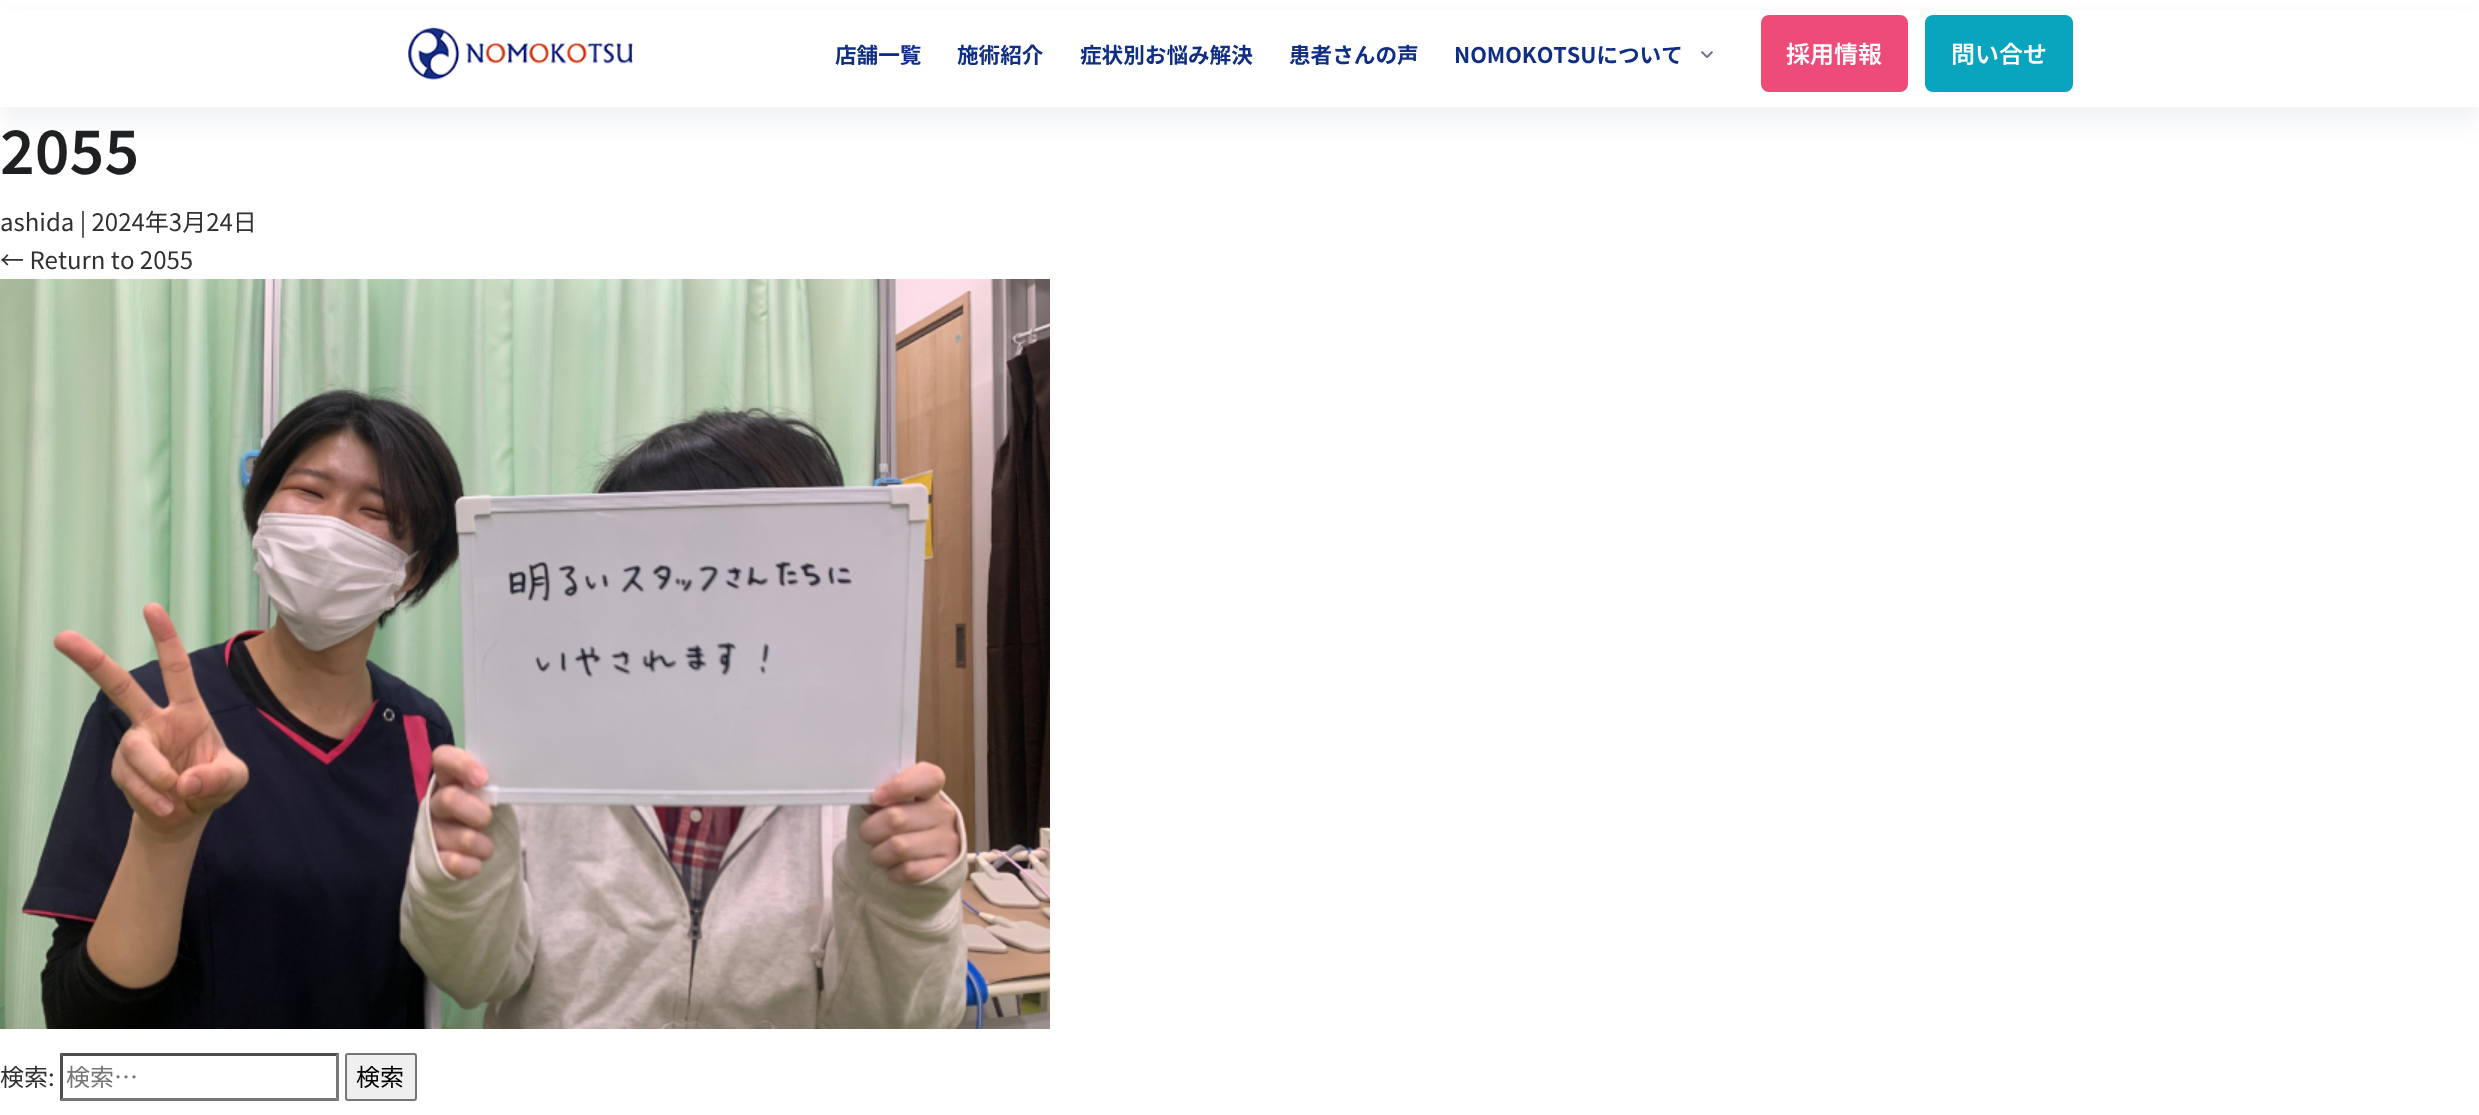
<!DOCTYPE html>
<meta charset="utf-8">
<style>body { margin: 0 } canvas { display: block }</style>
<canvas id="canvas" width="2479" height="1115"></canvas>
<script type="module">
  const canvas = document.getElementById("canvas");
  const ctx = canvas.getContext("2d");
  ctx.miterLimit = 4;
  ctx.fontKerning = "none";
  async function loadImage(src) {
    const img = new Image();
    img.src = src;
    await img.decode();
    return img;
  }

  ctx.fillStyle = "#ffffff";
  ctx.fillRect(0, 0, 2479, 1115);
  ctx.fillStyle = "rgba(140, 152, 164, 0.1)";
  ctx.filter = "blur(11px)";
  ctx.beginPath();
  ctx.rect(0, 18, 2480, 107);
  ctx.fill();
  ctx.filter = "none";
  ctx.fillStyle = "#ffffff";
  ctx.fillRect(0, 10, 2479, 97);
  ctx.drawImage(await loadImage("img1.png"), 408, 27, 225, 53);
  ctx.font = "bold 21.6px Noto Sans JP";
  ctx.fillStyle = "#0f2e84";
  ctx.fillText("店舗一覧", 835, 63);
  ctx.fillText("施術紹介", 957, 63);
  ctx.fillText("症状別お悩み解決", 1080, 63);
  ctx.fillText("患者さんの声", 1289, 63);
  ctx.fillText("NOMOKOTSUについて", 1454, 63);
  ctx.drawImage(await loadImage("img2.png"), 1701, 51, 12, 7);
  ctx.fillStyle = "#ed4c78";
  ctx.beginPath();
  ctx.roundRect(1762, 16, 145, 75, 7);
  ctx.fill();
  ctx.strokeStyle = "#ed4c78";
  ctx.lineWidth = 2;
  ctx.stroke();
  ctx.font = "600 24px Noto Sans JP";
  ctx.fillStyle = "#ffffff";
  ctx.fillText("採用情報", 1786, 63);
  ctx.fillStyle = "#09a5be";
  ctx.beginPath();
  ctx.roundRect(1925, 15, 148, 77, 8);
  ctx.fill();
  ctx.fillStyle = "#ffffff";
  ctx.fillText("問い合せ", 1951, 63);
  ctx.font = "600 60px Noto Sans JP";
  ctx.fillStyle = "#1e2022";
  ctx.fillText("2055", 0, 174);
  ctx.font = "24px Noto Sans JP";
  ctx.fillStyle = "#313131";
  ctx.fillText("ashida | 2024年3月24日", 0, 231);
  ctx.fillText("← Return to 2055", 0, 269);
  ctx.drawImage(await loadImage("img3.png"), 0, 279, 1050, 750);
  ctx.fillText("検索:", 0, 1086);
  ctx.fillStyle = "#4f4f4f";
  ctx.beginPath();
  ctx.moveTo(60, 1053);
  ctx.lineTo(339, 1053);
  ctx.lineTo(336, 1056);
  ctx.lineTo(63, 1056);
  ctx.closePath();
  ctx.fill();
  ctx.fillStyle = "#767676";
  ctx.beginPath();
  ctx.moveTo(339, 1053);
  ctx.lineTo(339, 1101);
  ctx.lineTo(336, 1098);
  ctx.lineTo(336, 1056);
  ctx.closePath();
  ctx.fill();
  ctx.beginPath();
  ctx.moveTo(339, 1101);
  ctx.lineTo(60, 1101);
  ctx.lineTo(63, 1098);
  ctx.lineTo(336, 1098);
  ctx.closePath();
  ctx.fill();
  ctx.fillStyle = "#4f4f4f";
  ctx.beginPath();
  ctx.moveTo(60, 1101);
  ctx.lineTo(60, 1053);
  ctx.lineTo(63, 1056);
  ctx.lineTo(63, 1098);
  ctx.closePath();
  ctx.fill();
  ctx.fillStyle = "#757575";
  ctx.fillText("検索…", 66, 1086);
  ctx.fillStyle = "#efefef";
  ctx.beginPath();
  ctx.roundRect(346, 1054, 70, 46, 2);
  ctx.fill();
  ctx.strokeStyle = "#767676";
  ctx.stroke();
  ctx.fillStyle = "#000000";
  ctx.fillText("検索", 356, 1086);
</script>
